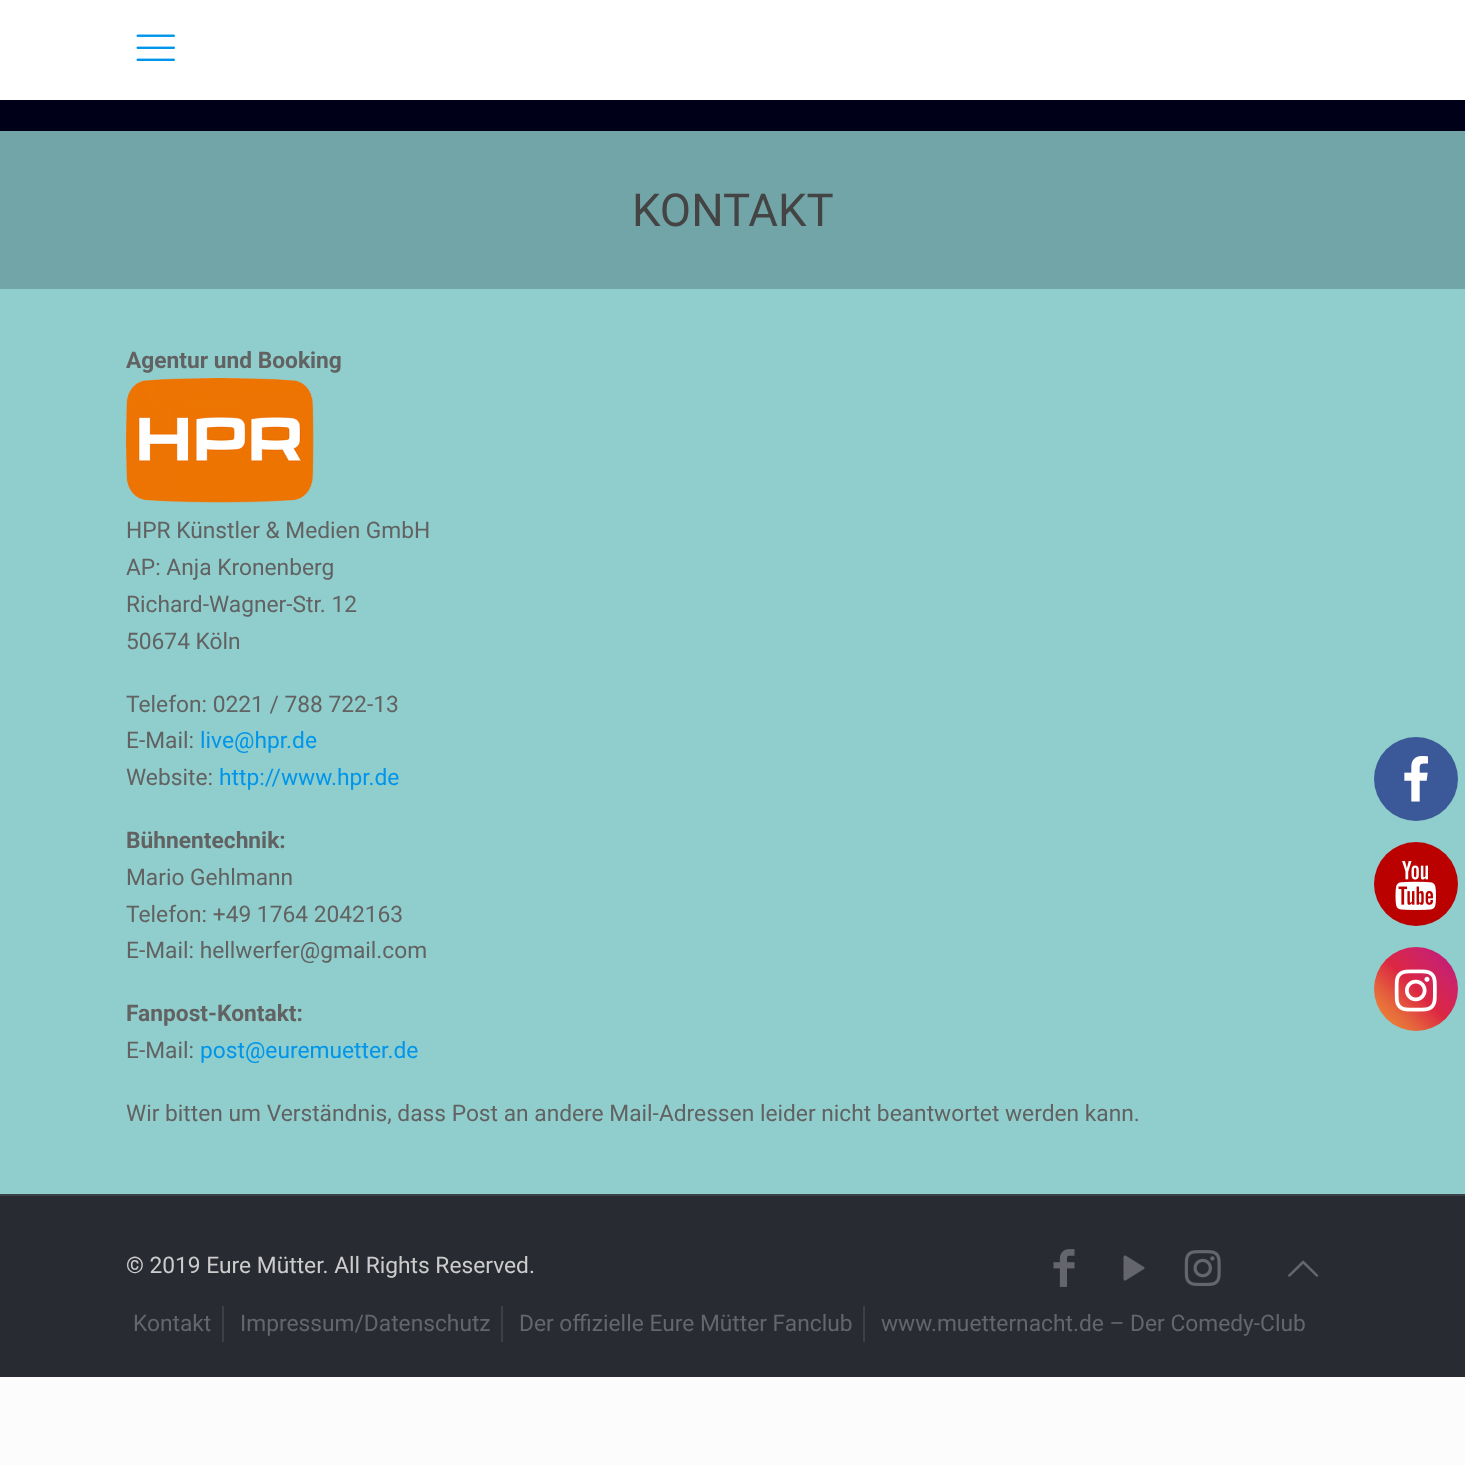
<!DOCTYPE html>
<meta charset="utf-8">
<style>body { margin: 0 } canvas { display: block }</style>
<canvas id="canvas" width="1465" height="1465"></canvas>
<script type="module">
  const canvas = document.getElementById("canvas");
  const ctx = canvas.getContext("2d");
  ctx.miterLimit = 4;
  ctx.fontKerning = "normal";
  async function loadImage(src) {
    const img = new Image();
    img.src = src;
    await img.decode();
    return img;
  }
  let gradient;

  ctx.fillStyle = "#fcfcfc";
  ctx.fillRect(0, 0, 1465, 1465);
  ctx.fillStyle = "#000119";
  ctx.fillRect(0, 100, 1465, 31);
  ctx.fillStyle = "#ffffff";
  ctx.fillRect(0, 0, 1465, 100);
  ctx.drawImage(await loadImage("img1.png"), 136, 34, 39, 27);
  ctx.fillStyle = "#72a5a8";
  ctx.fillRect(0, 131, 1465, 158);
  ctx.font = "45.5px Roboto";
  ctx.fillStyle = "#444444";
  ctx.fillText("KONTAKT", 632, 226);
  ctx.fillStyle = "#8fcecc";
  ctx.fillRect(0, 289, 1465, 905);
  ctx.font = "bold 22.75px Roboto";
  ctx.fillStyle = "#626262";
  ctx.fillText("Agentur und Booking", 126, 368);
  ctx.drawImage(await loadImage("img2.png"), 126, 378, 188, 125);
  ctx.font = "22.75px Roboto";
  ctx.fillText("HPR Künstler & Medien GmbH", 126, 538);
  ctx.fillText("AP: Anja Kronenberg", 126, 575);
  ctx.fillText("Richard-Wagner-Str. 12", 126, 612);
  ctx.fillText("50674 Köln", 126, 649);
  ctx.fillText("Telefon: 0221 / 788 722-13", 126, 712);
  ctx.fillText("E-Mail:", 126, 748);
  ctx.fillStyle = "#0095eb";
  ctx.fillText("live@hpr.de", 200, 748);
  ctx.fillStyle = "#626262";
  ctx.fillText("Website:", 126, 785);
  ctx.fillStyle = "#0095eb";
  ctx.fillText("http://www.hpr.de", 219, 785);
  ctx.font = "bold 22.75px Roboto";
  ctx.fillStyle = "#626262";
  ctx.fillText("Bühnentechnik:", 126, 848);
  ctx.font = "22.75px Roboto";
  ctx.fillText("Mario Gehlmann", 126, 885);
  ctx.fillText("Telefon: +49 1764 2042163", 126, 922);
  ctx.fillText("E-Mail: hellwerfer@gmail.com", 126, 958);
  ctx.font = "bold 22.75px Roboto";
  ctx.fillText("Fanpost-Kontakt:", 126, 1021);
  ctx.font = "22.75px Roboto";
  ctx.fillText("E-Mail:", 126, 1058);
  ctx.fillStyle = "#0095eb";
  ctx.fillText("post@euremuetter.de", 200, 1058);
  ctx.fillStyle = "#626262";
  ctx.fillText("Wir bitten um Verständnis, dass Post an andere Mail-Adressen leider nicht beantwortet werden kann.", 126, 1121);
  ctx.fillStyle = "#292b33";
  ctx.fillRect(0, 1196, 1465, 181);
  ctx.fillStyle = "#3e4047";
  ctx.fillRect(0, 1194, 1465, 2);
  ctx.fillStyle = "#cccccc";
  ctx.fillText("© 2019 Eure Mütter. All Rights Reserved.", 126, 1273);
  ctx.drawImage(await loadImage("img3.png"), 1053, 1249, 22, 38);
  ctx.drawImage(await loadImage("img4.png"), 1123, 1255, 22, 26);
  ctx.drawImage(await loadImage("img5.png"), 1184, 1250, 37, 36);
  ctx.drawImage(await loadImage("img6.png"), 1288, 1260, 31, 17);
  ctx.fillStyle = "#3e4047";
  ctx.fillRect(222, 1306, 2, 36);
  ctx.fillStyle = "#65666c";
  ctx.fillText("Kontakt", 133, 1331);
  ctx.fillStyle = "#3e4047";
  ctx.fillRect(501, 1306, 2, 36);
  ctx.fillStyle = "#65666c";
  ctx.fillText("Impressum/Datenschutz", 240, 1331);
  ctx.fillStyle = "#3e4047";
  ctx.fillRect(863, 1306, 2, 36);
  ctx.fillStyle = "#65666c";
  ctx.fillText("Der offizielle Eure Mütter Fanclub", 519, 1331);
  ctx.fillText("www.muetternacht.de – Der Comedy-Club", 881, 1331);
  ctx.fillStyle = "#3b5998";
  ctx.beginPath();
  ctx.arc(1416, 779, 42, 0, Math.PI * 2);
  ctx.fill();
  ctx.drawImage(await loadImage("img7.png"), 1404, 756, 24, 46);
  ctx.fillStyle = "#bb0000";
  ctx.beginPath();
  ctx.arc(1416, 884, 42, 0, Math.PI * 2);
  ctx.fill();
  ctx.drawImage(await loadImage("img8.png"), 1395, 861, 41, 49);
  gradient = ctx.createLinearGradient(1374, 1031, 1458, 947);
  gradient.addColorStop(0, "#f09433");
  gradient.addColorStop(0.25, "#e6683c");
  gradient.addColorStop(0.5, "#dc2743");
  gradient.addColorStop(0.75, "#cc2366");
  gradient.addColorStop(1, "#bc1888");
  ctx.fillStyle = gradient;
  ctx.beginPath();
  ctx.arc(1416, 989, 42, 0, Math.PI * 2);
  ctx.fill();
  ctx.drawImage(await loadImage("img9.png"), 1394, 969, 43, 43);
</script>
